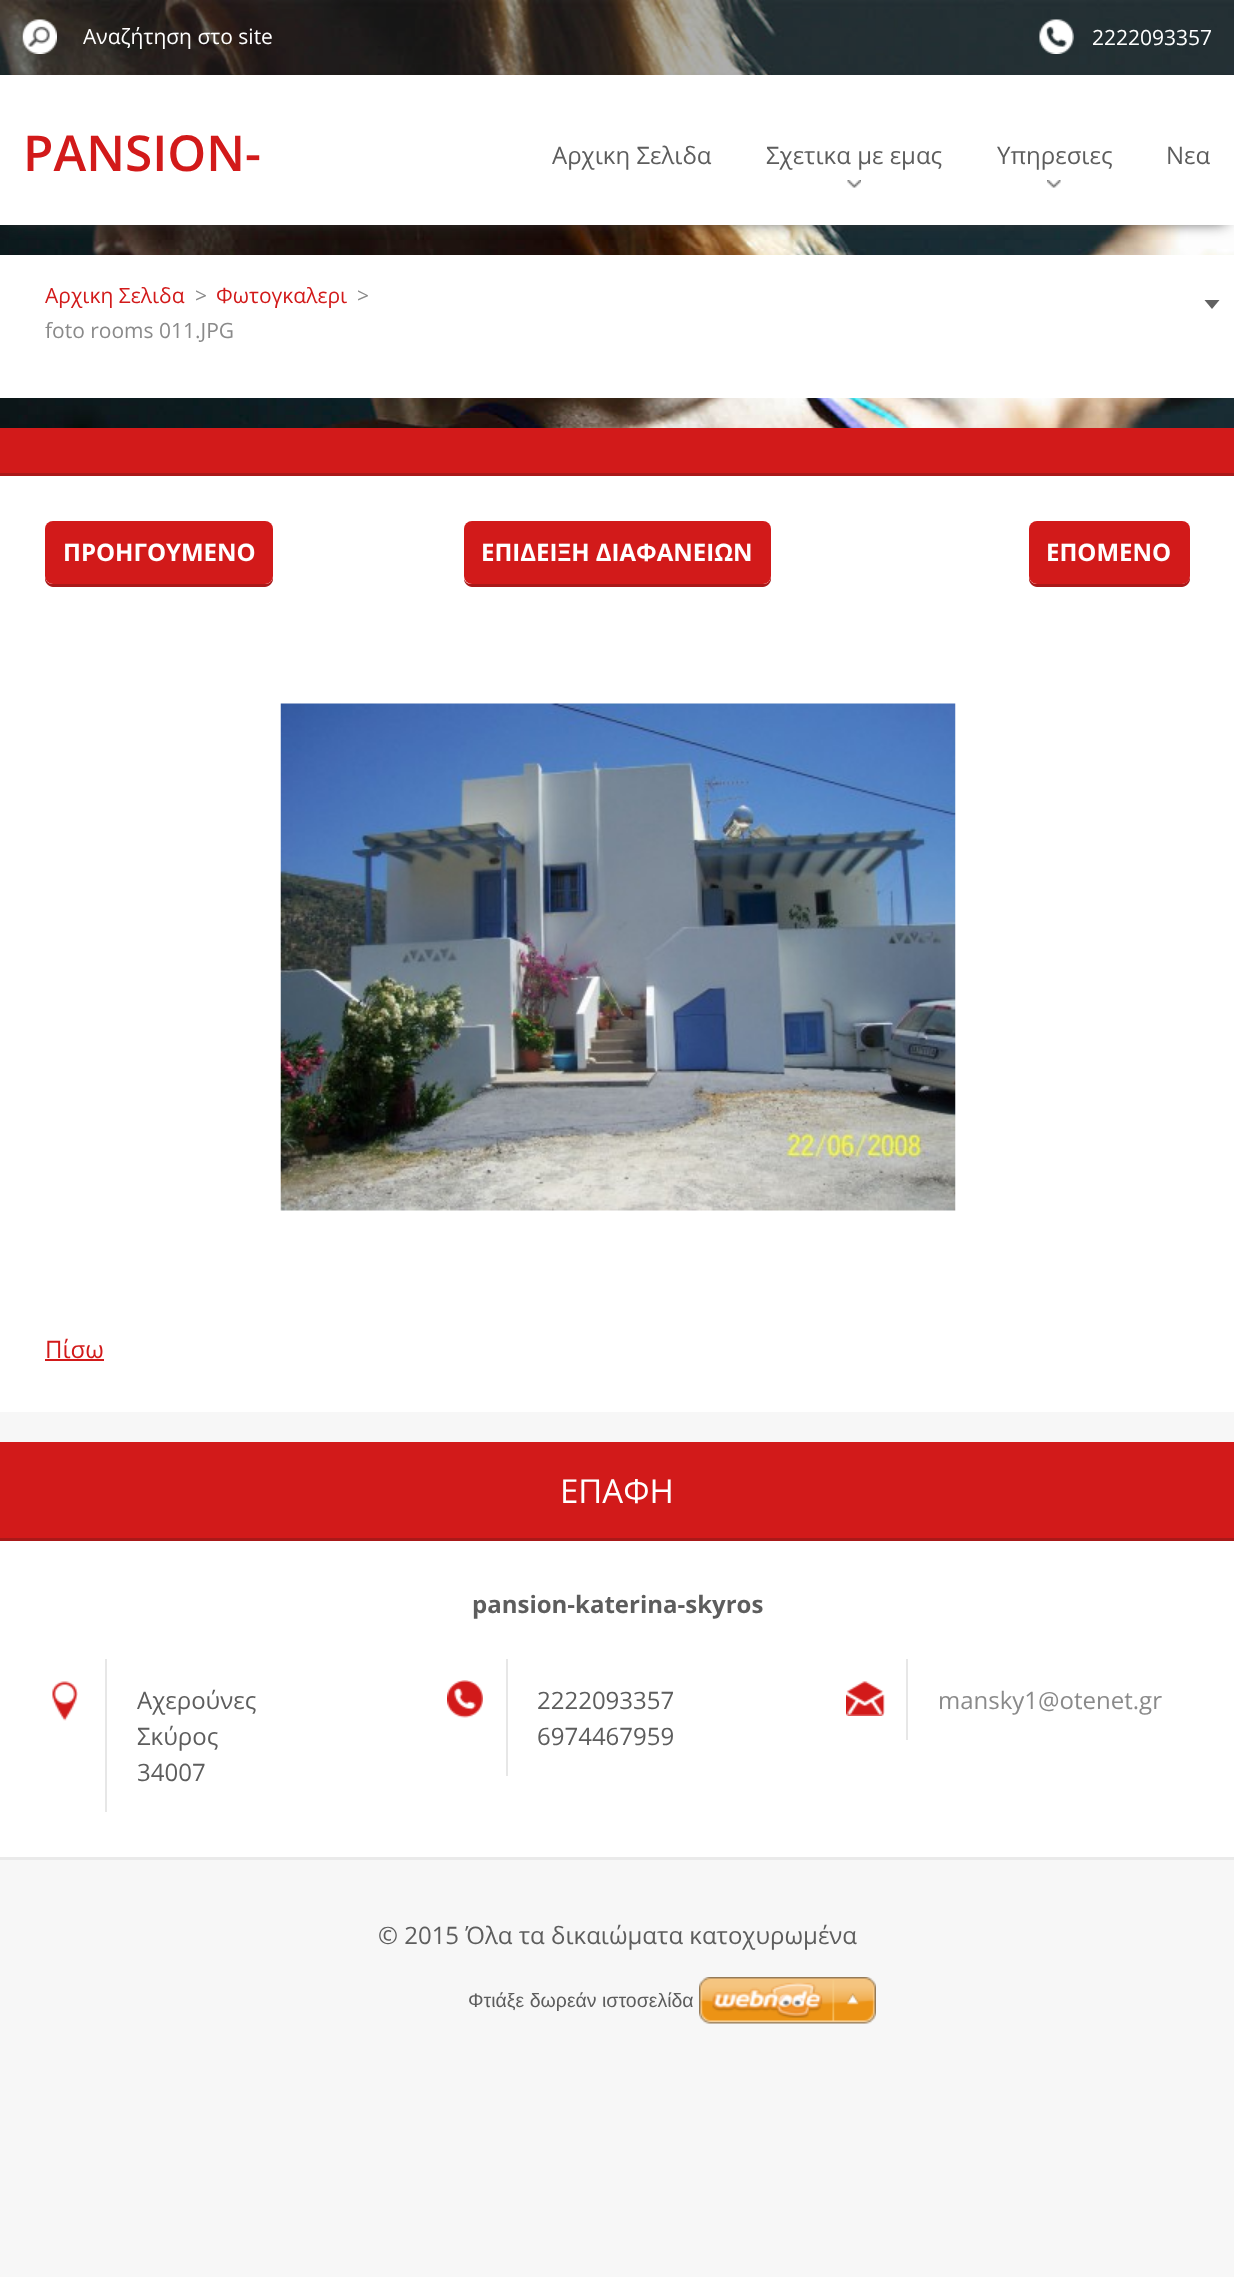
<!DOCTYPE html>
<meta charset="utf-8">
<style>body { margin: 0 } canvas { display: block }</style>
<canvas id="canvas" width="1234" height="2277"></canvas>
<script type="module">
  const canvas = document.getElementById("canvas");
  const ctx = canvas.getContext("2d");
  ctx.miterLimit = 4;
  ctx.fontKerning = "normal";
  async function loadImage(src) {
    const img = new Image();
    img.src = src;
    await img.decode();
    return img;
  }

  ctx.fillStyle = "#f7f7f7";
  ctx.fillRect(0, 0, 1234, 2277);
  ctx.drawImage(await loadImage("img1.png"), 0, 0, 1234, 428);
  ctx.fillStyle = "rgba(53, 53, 53, 0.4)";
  ctx.fillRect(0, 0, 1234, 75);
  ctx.drawImage(await loadImage("img2.png"), 22, 19, 35, 35);
  ctx.font = "21px Open Sans";
  ctx.fillStyle = "#ffffff";
  ctx.fillText("Αναζήτηση στο site", 83, 44);
  ctx.drawImage(await loadImage("img3.png"), 1039, 19, 35, 35);
  ctx.fillText("2222093357", 1092, 45);
  ctx.fillStyle = "#353535";
  ctx.filter = "blur(7.5px)";
  ctx.beginPath();
  ctx.rect(9, 90, 1217, 132);
  ctx.fill();
  ctx.filter = "none";
  ctx.fillStyle = "#ffffff";
  ctx.fillRect(0, 75, 1234, 150);
  ctx.font = "600 49.5px Open Sans";
  ctx.fillStyle = "#d21a1a";
  ctx.fillText("PANSION-", 23, 171);
  ctx.font = "24px Open Sans";
  ctx.fillStyle = "#5d5d5d";
  ctx.fillText("Αρχικη Σελιδα", 552, 164);
  ctx.fillText("Σχετικα με εμας", 766, 164);
  ctx.drawImage(await loadImage("img4.png"), 847, 180, 14, 8);
  ctx.fillText("Υπηρεσιες", 997, 164);
  ctx.drawImage(await loadImage("img5.png"), 1047, 180, 14, 8);
  ctx.fillText("Nεα", 1166, 164);
  ctx.fillStyle = "#ffffff";
  ctx.fillRect(0, 255, 1234, 143);
  ctx.fillStyle = "#616161";
  ctx.beginPath();
  ctx.moveTo(1204.5, 300);
  ctx.lineTo(1219.5, 300);
  ctx.lineTo(1212, 309);
  ctx.closePath();
  ctx.fill();
  ctx.font = "21px Open Sans";
  ctx.fillStyle = "#d21a1a";
  ctx.fillText("Αρχικη Σελιδα", 45, 303);
  ctx.fillStyle = "#8a8a8a";
  ctx.fillText(">", 195, 303);
  ctx.fillStyle = "#d21a1a";
  ctx.fillText("Φωτογκαλερι", 216, 303);
  ctx.fillStyle = "#8a8a8a";
  ctx.fillText(">", 357, 303);
  ctx.fillText("foto rooms 011.JPG", 45, 338);
  ctx.fillStyle = "#ffffff";
  ctx.fillRect(0, 476, 1234, 936);
  ctx.fillStyle = "#d21a1a";
  ctx.fillRect(0, 428, 1234, 45);
  ctx.fillStyle = "#a91919";
  ctx.fillRect(0, 473, 1234, 3);
  ctx.beginPath();
  ctx.moveTo(45, 576);
  ctx.lineTo(45, 579);
  ctx.bezierCurveTo(45, 583, 49, 587, 53, 587);
  ctx.lineTo(265, 587);
  ctx.bezierCurveTo(269, 587, 273, 583, 273, 579);
  ctx.lineTo(273, 576);
  ctx.bezierCurveTo(273, 580, 270, 584, 266, 584);
  ctx.lineTo(52, 584);
  ctx.bezierCurveTo(48, 584, 45, 580, 45, 576);
  ctx.closePath();
  ctx.fill();
  ctx.fillStyle = "#d21a1a";
  ctx.beginPath();
  ctx.roundRect(45, 521, 228, 63, 8);
  ctx.fill();
  ctx.font = "bold 24px Open Sans";
  ctx.fillStyle = "#ffffff";
  ctx.fillText("ΠΡΟΗΓΟΥΜΕΝΟ", 63, 561);
  ctx.fillStyle = "#a91919";
  ctx.beginPath();
  ctx.moveTo(464, 579);
  ctx.bezierCurveTo(464, 583, 468, 587, 472, 587);
  ctx.lineTo(763, 587);
  ctx.bezierCurveTo(767, 587, 771, 583, 771, 579);
  ctx.lineTo(771, 576);
  ctx.bezierCurveTo(771, 580, 768, 584, 764, 584);
  ctx.lineTo(471, 584);
  ctx.bezierCurveTo(468, 584, 465, 582, 464, 579);
  ctx.closePath();
  ctx.fill();
  ctx.fillStyle = "#d21a1a";
  ctx.beginPath();
  ctx.roundRect(464, 521, 307, 63, 8);
  ctx.fill();
  ctx.fillStyle = "#ffffff";
  ctx.fillText("ΕΠΙΔΕΙΞΗ ΔΙΑΦΑΝΕΙΩΝ", 481, 561);
  ctx.fillStyle = "#a91919";
  ctx.beginPath();
  ctx.moveTo(1029, 576);
  ctx.lineTo(1029, 579);
  ctx.bezierCurveTo(1029, 583, 1033, 587, 1037, 587);
  ctx.lineTo(1182, 587);
  ctx.bezierCurveTo(1186, 587, 1190, 583, 1190, 579);
  ctx.lineTo(1190, 532);
  ctx.lineTo(1190, 529);
  ctx.lineTo(1190, 576);
  ctx.bezierCurveTo(1190, 580, 1186, 584, 1182, 584);
  ctx.lineTo(1036, 584);
  ctx.bezierCurveTo(1032, 584, 1029, 580, 1029, 576);
  ctx.closePath();
  ctx.fill();
  ctx.fillStyle = "#d21a1a";
  ctx.beginPath();
  ctx.roundRect(1029, 521, 161, 63, 8);
  ctx.fill();
  ctx.fillStyle = "#ffffff";
  ctx.fillText("ΕΠΟΜΕΝΟ", 1046, 561);
  ctx.drawImage(await loadImage("img6.png"), 280, 703, 676, 508);
  ctx.font = "24px Open Sans";
  ctx.fillStyle = "#d21a1a";
  ctx.fillText("Πίσω", 45, 1358);
  ctx.fillRect(45, 1359, 59, 2);
  ctx.fillStyle = "#eaeaea";
  ctx.beginPath();
  ctx.moveTo(0, 1857);
  ctx.lineTo(0, 1860);
  ctx.lineTo(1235, 1860);
  ctx.lineTo(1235, 1445);
  ctx.lineTo(1234, 1445);
  ctx.lineTo(1234, 1857);
  ctx.closePath();
  ctx.fill();
  ctx.fillStyle = "#ffffff";
  ctx.fillRect(0, 1541, 1234, 316);
  ctx.fillStyle = "#d21a1a";
  ctx.fillRect(0, 1442, 1234, 96);
  ctx.fillStyle = "#a91919";
  ctx.fillRect(0, 1538, 1234, 3);
  ctx.font = "33px Open Sans";
  ctx.fillStyle = "#ffffff";
  ctx.fillText("ΕΠΑΦΗ", 560, 1503);
  ctx.font = "bold 24px Open Sans";
  ctx.fillStyle = "#5d5d5d";
  ctx.fillText("pansion-katerina-skyros", 472, 1613);
  ctx.drawImage(await loadImage("img7.png"), 52, 1681, 26, 40);
  ctx.fillStyle = "#e7e7e7";
  ctx.fillRect(105, 1659, 2, 153);
  ctx.font = "24px Open Sans";
  ctx.fillStyle = "#5d5d5d";
  ctx.fillText("Αχερούνες", 137, 1709);
  ctx.fillText("Σκύρος", 137, 1745);
  ctx.fillText("34007", 137, 1781);
  ctx.drawImage(await loadImage("img8.png"), 447, 1680, 36, 38);
  ctx.fillStyle = "#e7e7e7";
  ctx.fillRect(506, 1659, 2, 117);
  ctx.fillStyle = "#5d5d5d";
  ctx.fillText("2222093357", 537, 1709);
  ctx.fillText("6974467959", 537, 1745);
  ctx.drawImage(await loadImage("img9.png"), 846, 1681, 39, 35);
  ctx.fillStyle = "#e7e7e7";
  ctx.fillRect(906, 1659, 2, 81);
  ctx.fillStyle = "#8a8a8a";
  ctx.fillText("mansky1@otenet.gr", 938, 1709);
  ctx.fillStyle = "#5d5d5d";
  ctx.fillText("© 2015 Όλα τα δικαιώματα κατοχυρωμένα", 378, 1944);
  ctx.font = "19.5px Liberation Sans";
  ctx.fillText("Φτιάξε δωρεάν ιστοσελίδα", 468, 2007);
  ctx.drawImage(await loadImage("img10.png"), 699, 1977, 177, 47);
</script>
